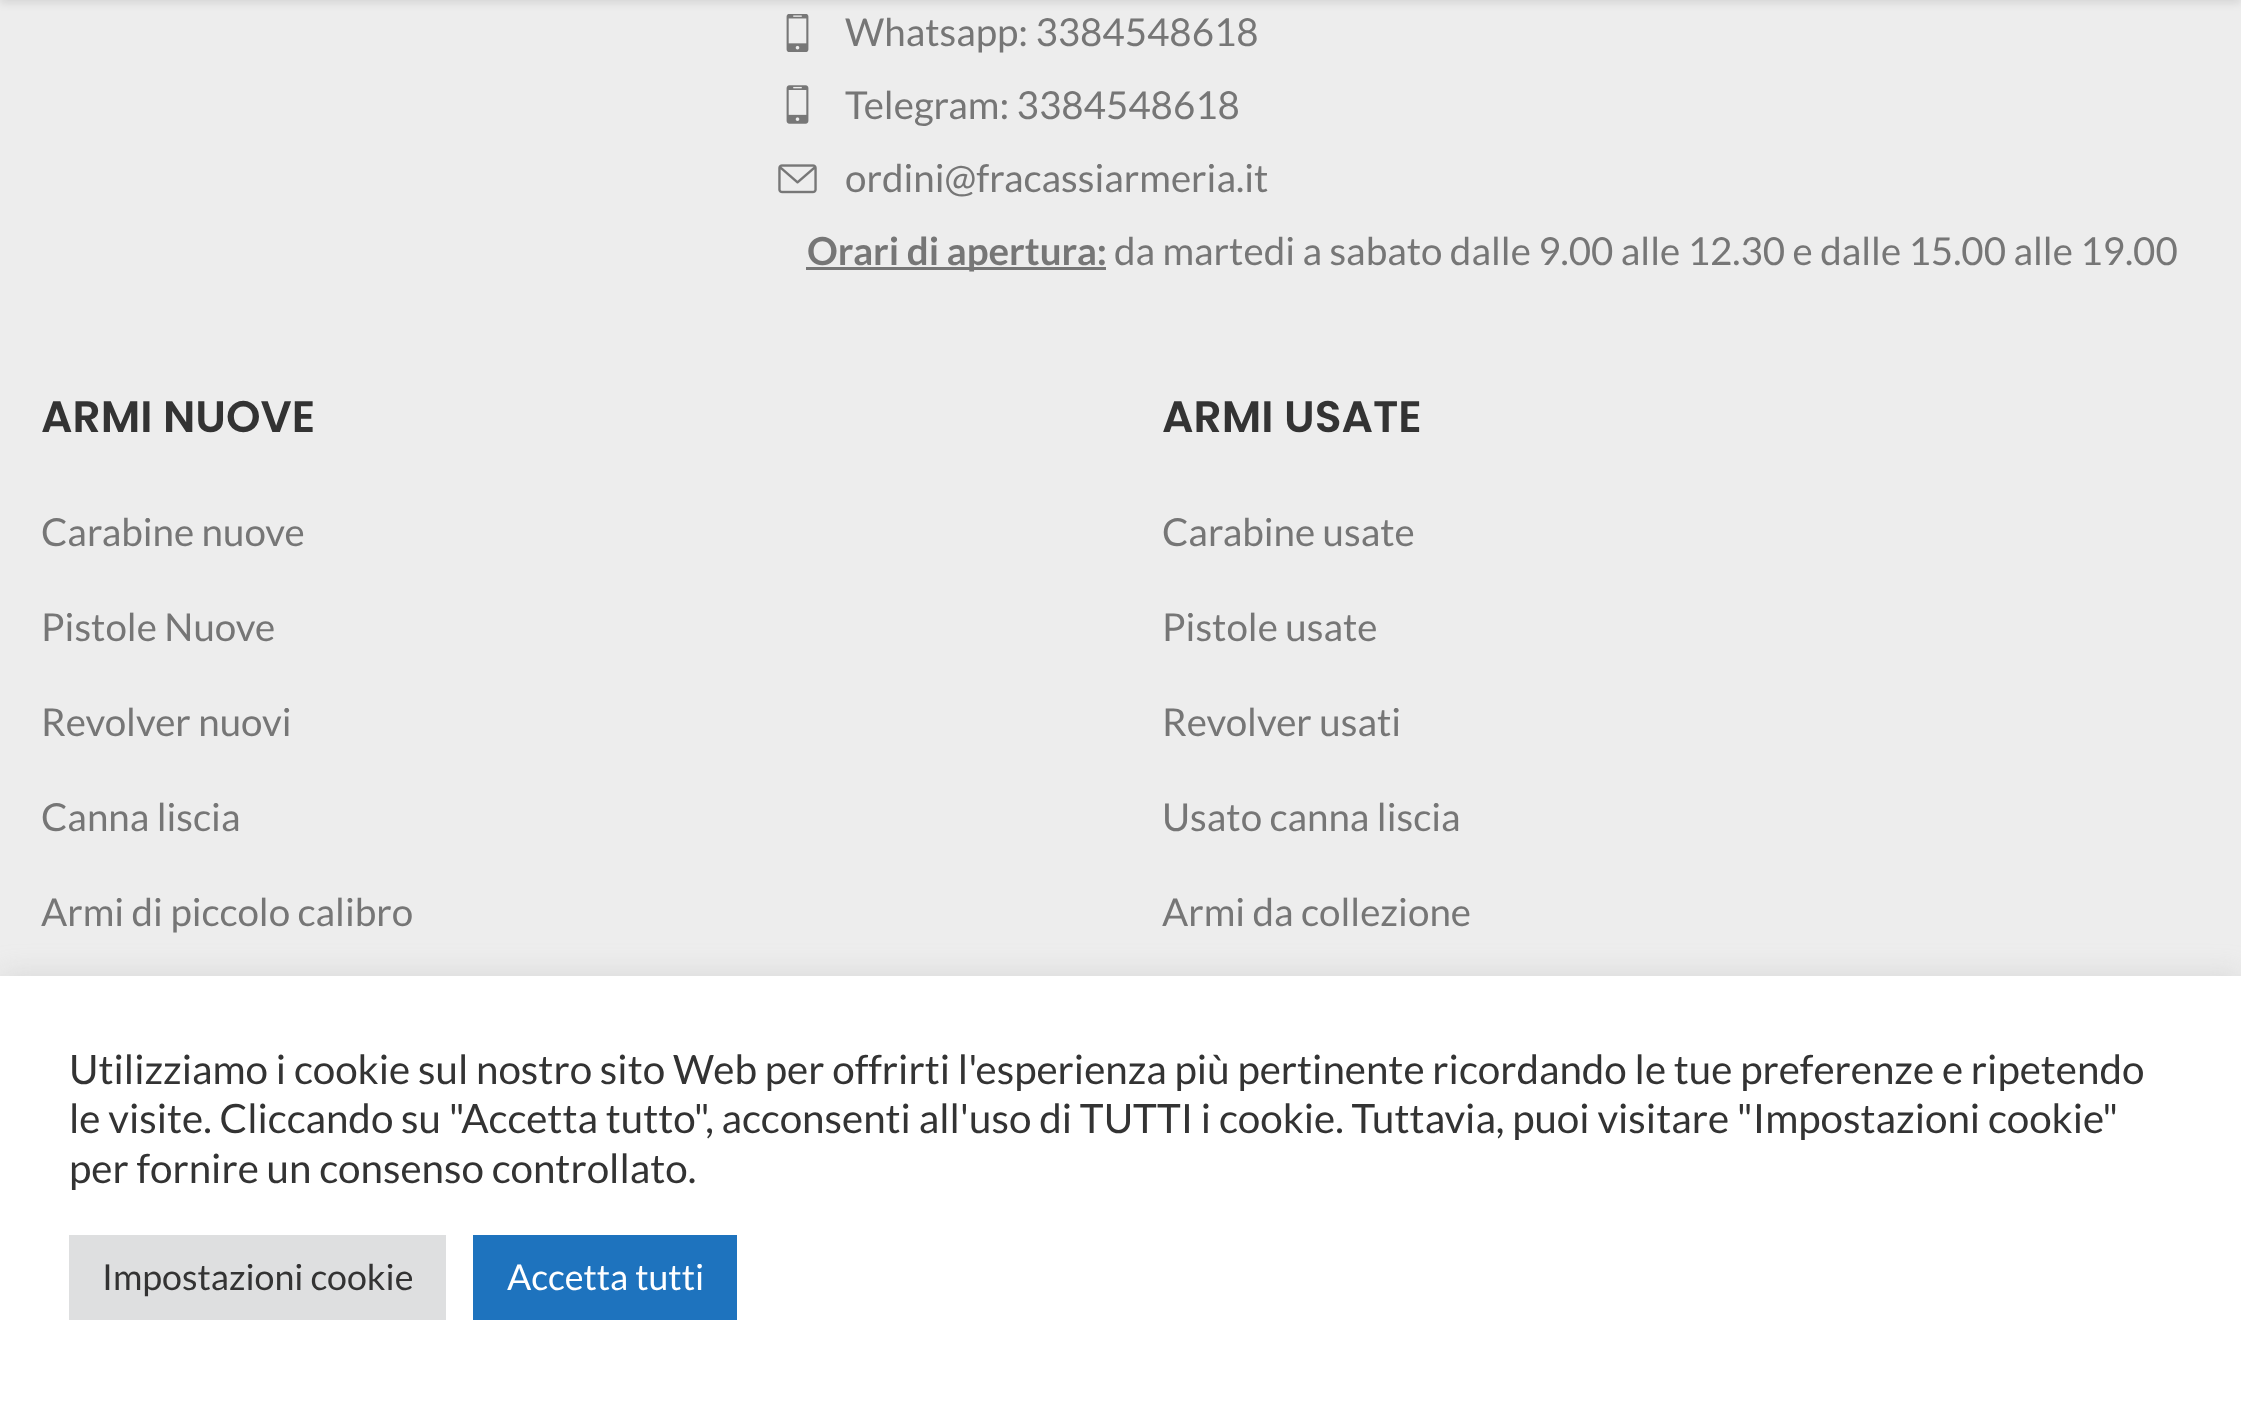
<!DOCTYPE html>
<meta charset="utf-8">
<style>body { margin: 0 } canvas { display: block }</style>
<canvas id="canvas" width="2241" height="1402"></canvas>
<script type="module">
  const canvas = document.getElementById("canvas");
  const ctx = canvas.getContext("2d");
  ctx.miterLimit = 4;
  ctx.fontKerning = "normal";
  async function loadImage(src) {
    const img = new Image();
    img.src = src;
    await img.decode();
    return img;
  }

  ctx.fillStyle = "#ededed";
  ctx.fillRect(0, 0, 2241, 1402);
  ctx.drawImage(await loadImage("img1.png"), 786, 14, 23, 38);
  ctx.fillStyle = "rgba(0, 0, 0, 0.1)";
  ctx.filter = "blur(4px)";
  ctx.beginPath();
  ctx.rect(0, -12, 2241, 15);
  ctx.fill();
  ctx.filter = "none";
  ctx.font = "38.5px Lato";
  ctx.fillStyle = "#767676";
  ctx.fillText("Whatsapp: 3384548618", 845, 46);
  ctx.drawImage(await loadImage("img2.png"), 786, 85, 23, 39);
  ctx.fillText("Telegram: 3384548618", 845, 119);
  ctx.drawImage(await loadImage("img3.png"), 778, 164, 39, 30);
  ctx.fillText("ordini@fracassiarmeria.it", 845, 192);
  ctx.fillRect(806, 267, 300, 3);
  ctx.font = "bold 38.5px Lato";
  ctx.fillText("Orari di apertura:", 807, 265);
  ctx.font = "38.5px Lato";
  ctx.fillText("da martedi a sabato dalle 9.00 alle 12.30 e dalle 15.00 alle 19.00", 1114, 265);
  ctx.font = "600 44px Poppins";
  ctx.fillStyle = "#333333";
  ctx.fillText("ARMI NUOVE", 41, 432);
  ctx.font = "38.5px Lato";
  ctx.fillStyle = "#767676";
  ctx.fillText("Carabine nuove", 41, 546);
  ctx.fillText("Pistole Nuove", 41, 641);
  ctx.fillText("Revolver nuovi", 41, 736);
  ctx.fillText("Canna liscia", 41, 831);
  ctx.fillText("Armi di piccolo calibro", 41, 926);
  ctx.font = "600 44px Poppins";
  ctx.fillStyle = "#333333";
  ctx.fillText("ARMI USATE", 1162, 432);
  ctx.font = "38.5px Lato";
  ctx.fillStyle = "#767676";
  ctx.fillText("Carabine usate", 1162, 546);
  ctx.fillText("Pistole usate", 1162, 641);
  ctx.fillText("Revolver usati", 1162, 736);
  ctx.fillText("Usato canna liscia", 1162, 831);
  ctx.fillText("Armi da collezione", 1162, 926);
  ctx.fillStyle = "rgba(172, 171, 171, 0.3)";
  ctx.filter = "blur(14px)";
  ctx.beginPath();
  ctx.rect(0, 974, 2241, 426);
  ctx.fill();
  ctx.filter = "none";
  ctx.fillStyle = "#ffffff";
  ctx.fillRect(0, 976, 2241, 426);
  ctx.font = "40.33px Lato";
  ctx.fillStyle = "#333333";
  ctx.fillText("Utilizziamo i cookie sul nostro sito Web per offrirti l'esperienza più pertinente ricordando le tue preferenze e ripetendo", 69, 1084);
  ctx.fillText("le visite. Cliccando su \"Accetta tutto\", acconsenti all'uso di TUTTI i cookie. Tuttavia, puoi visitare \"Impostazioni cookie\"", 69, 1133);
  ctx.fillText("per fornire un consenso controllato.", 69, 1183);
  ctx.fillStyle = "#dedfe0";
  ctx.fillRect(69, 1235, 377, 85);
  ctx.font = "35.75px Lato";
  ctx.fillStyle = "#333333";
  ctx.fillText("Impostazioni cookie", 102, 1290);
  ctx.fillStyle = "#1e73be";
  ctx.fillRect(473, 1235, 264, 85);
  ctx.fillStyle = "#ffffff";
  ctx.fillText("Accetta tutti", 507, 1290);
</script>
